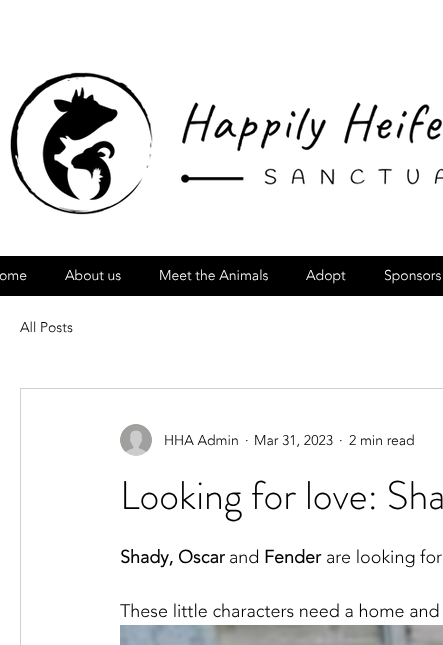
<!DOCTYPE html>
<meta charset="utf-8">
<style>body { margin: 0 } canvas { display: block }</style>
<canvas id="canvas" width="443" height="645"></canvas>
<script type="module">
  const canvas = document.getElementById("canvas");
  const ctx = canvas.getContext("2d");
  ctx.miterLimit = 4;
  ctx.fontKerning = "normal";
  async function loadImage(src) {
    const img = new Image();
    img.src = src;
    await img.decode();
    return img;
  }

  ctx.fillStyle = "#ffffff";
  ctx.fillRect(0, 0, 443, 645);
  ctx.drawImage(await loadImage("img1.png"), 10, 72, 433, 143);
  ctx.fillStyle = "#000000";
  ctx.fillRect(0, 256, 443, 40);
  ctx.font = "300 14px 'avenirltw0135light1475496'";
  ctx.fillStyle = "#ffffff";
  ctx.fillText("ome", -1, 280);
  ctx.fillText("About us", 65, 280);
  ctx.fillText("Meet the Animals", 159, 280);
  ctx.fillText("Adopt", 306, 280);
  ctx.fillText("Sponsors", 384, 280);
  ctx.fillStyle = "#000000";
  ctx.fillText("All Posts", 20, 332);
  ctx.strokeStyle = "#cfcfcf";
  ctx.strokeRect(20.5, 388.5, 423, 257);
  ctx.drawImage(await loadImage("img2.png"), 120, 424, 32, 32);
  ctx.fillText("HHA Admin", 164, 445);
  ctx.fillText("·", 245, 445);
  ctx.fillText("Mar 31, 2023", 254, 445);
  ctx.fillText("·", 339, 445);
  ctx.fillText("2 min read", 349, 445);
  ctx.font = "300 40px 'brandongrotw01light'";
  ctx.fillText("Looking for love: Sha", 120, 509);
  ctx.font = "bold 18px 'avenirltw0135light1475496'";
  ctx.fillText("Shady, Oscar", 120, 563);
  ctx.font = "300 18px 'avenirltw0135light1475496'";
  ctx.fillText("and", 229, 563);
  ctx.font = "bold 18px 'avenirltw0135light1475496'";
  ctx.fillText("Fender", 264, 563);
  ctx.font = "300 18px 'avenirltw0135light1475496'";
  ctx.fillText("are looking for", 326, 563);
  ctx.fillText("These little characters need a home and", 120, 617);
  ctx.drawImage(await loadImage("img3.png"), 120, 625, 323, 20);
</script>
